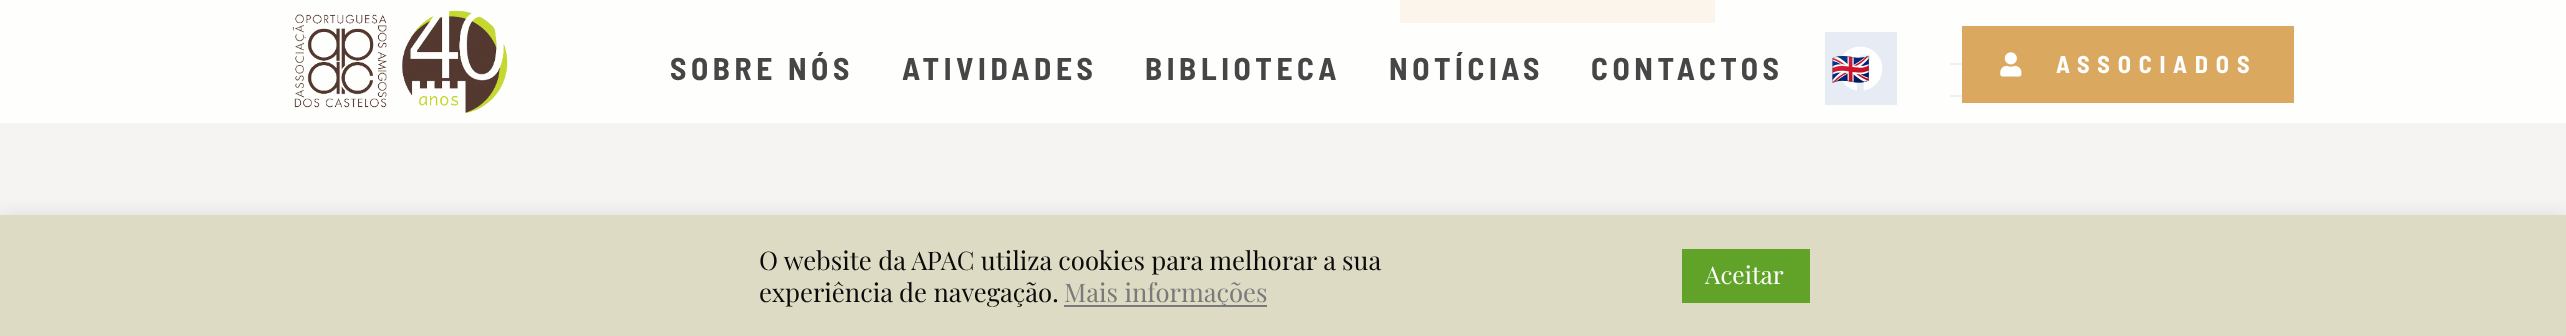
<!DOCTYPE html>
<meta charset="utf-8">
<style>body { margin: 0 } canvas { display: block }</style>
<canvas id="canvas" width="2566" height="336"></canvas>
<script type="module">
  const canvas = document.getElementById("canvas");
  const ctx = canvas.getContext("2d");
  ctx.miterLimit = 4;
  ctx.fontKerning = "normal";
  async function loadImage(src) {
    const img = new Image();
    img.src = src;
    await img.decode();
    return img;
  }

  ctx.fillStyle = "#f6f4f2";
  ctx.fillRect(0, 0, 2566, 336);
  ctx.fillStyle = "#fefefd";
  ctx.fillRect(0, 0, 2566, 123);
  ctx.fillStyle = "#fbf5ec";
  ctx.fillRect(1400, 0, 315, 23);
  ctx.fillStyle = "#e7ebf3";
  ctx.fillRect(1825, 32, 72, 73);
  ctx.drawImage(await loadImage("img1.png"), 1838, 46, 45, 45);
  ctx.fillStyle = "#f1f1f1";
  ctx.fillRect(1950, 63, 12, 2);
  ctx.fillRect(1950, 95, 12, 2);
  ctx.drawImage(await loadImage("img2.png"), 292, 10, 216, 103);
  ctx.letterSpacing = "4.6px";
  ctx.font = "bold 31.5px Barlow Semi Condensed";
  ctx.fillStyle = "#464646";
  ctx.fillText("SOBRE NÓS", 670, 80);
  ctx.fillText("ATIVIDADES", 902, 80);
  ctx.fillText("BIBLIOTECA", 1145, 80);
  ctx.fillText("NOTÍCIAS", 1389, 80);
  ctx.fillText("CONTACTOS", 1591, 80);
  ctx.font = "bold 31.5px Noto Color Emoji";
  ctx.fillText("🇬🇧", 1831, 80);
  ctx.fillStyle = "#dba860";
  ctx.fillRect(1962, 26, 332, 77);
  ctx.drawImage(await loadImage("img3.png"), 2000, 52, 22, 25);
  ctx.letterSpacing = "7.75px";
  ctx.font = "bold 24.25px Barlow Semi Condensed";
  ctx.fillStyle = "#ffffff";
  ctx.fillText("ASSOCIADOS", 2056, 73);
  ctx.fillStyle = "rgba(172, 171, 171, 0.3)";
  ctx.filter = "blur(9px)";
  ctx.beginPath();
  ctx.rect(0, 214, 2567, 120);
  ctx.fill();
  ctx.filter = "none";
  ctx.fillStyle = "#dddbc3";
  ctx.fillRect(0, 215, 2566, 121);
  ctx.letterSpacing = "0px";
  ctx.font = "25.7px Playfair Display";
  ctx.fillStyle = "#0a0a0a";
  ctx.fillText("O website da APAC utiliza cookies para melhorar a sua", 759, 270);
  ctx.fillText("experiência de navegação.", 759, 302);
  ctx.fillStyle = "#7a7a7a";
  ctx.fillRect(1064, 305, 203, 2);
  ctx.fillText("Mais informações", 1064, 302);
  ctx.fillStyle = "#61a229";
  ctx.fillRect(1682, 249, 128, 54);
  ctx.font = "24.5px Playfair Display";
  ctx.fillStyle = "#ffffff";
  ctx.fillText("Aceitar", 1705, 284);
</script>
